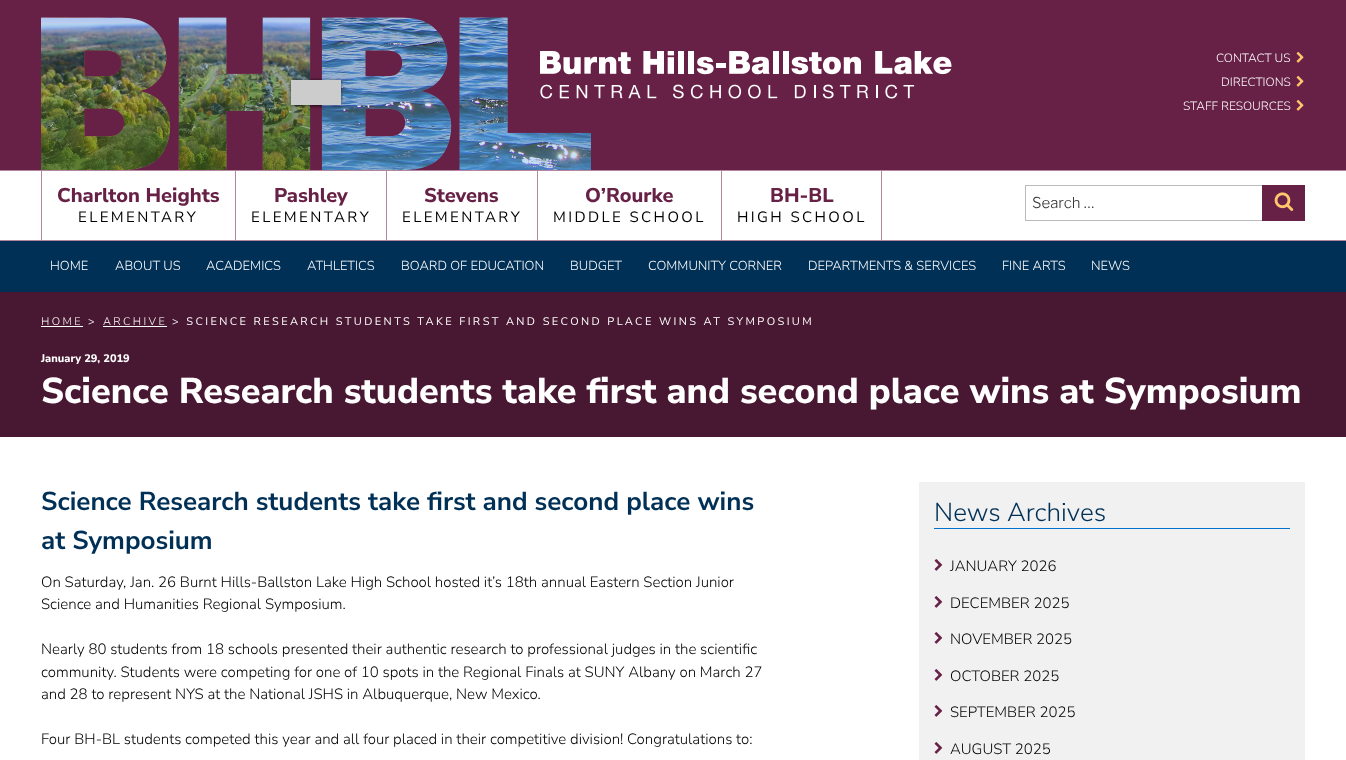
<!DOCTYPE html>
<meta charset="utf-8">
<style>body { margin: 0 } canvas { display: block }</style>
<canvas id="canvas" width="1346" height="760"></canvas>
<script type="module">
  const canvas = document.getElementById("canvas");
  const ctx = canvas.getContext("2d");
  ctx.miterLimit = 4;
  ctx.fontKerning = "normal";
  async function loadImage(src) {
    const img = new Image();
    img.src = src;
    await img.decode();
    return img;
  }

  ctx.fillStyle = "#ffffff";
  ctx.fillRect(0, 0, 1346, 760);
  ctx.fillStyle = "#672146";
  ctx.fillRect(0, 0, 1346, 170);
  ctx.drawImage(await loadImage("img1.png"), 41, 17, 550, 153);
  ctx.drawImage(await loadImage("img2.png"), 540, 51, 412, 48);
  ctx.font = "200 12px 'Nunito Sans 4'";
  ctx.fillStyle = "#ffffff";
  ctx.fillText("CONTACT US", 1216, 62);
  ctx.drawImage(await loadImage("img3.png"), 1296, 51, 8, 12);
  ctx.fillText("DIRECTIONS", 1221, 86);
  ctx.drawImage(await loadImage("img3.png"), 1296, 75, 8, 12);
  ctx.fillText("STAFF RESOURCES", 1183, 110);
  ctx.drawImage(await loadImage("img3.png"), 1296, 99, 8, 12);
  ctx.fillStyle = "#b3859e";
  ctx.fillRect(0, 170, 1346, 1);
  ctx.fillRect(0, 240, 1346, 1);
  ctx.fillRect(235, 171, 1, 69);
  ctx.fillRect(41, 171, 1, 69);
  ctx.font = "200 20px Nunito Sans";
  ctx.fillStyle = "#672146";
  ctx.fillText("Charlton Heights", 57, 202);
  ctx.letterSpacing = "2.4px";
  ctx.font = "200 15px 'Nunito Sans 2'";
  ctx.fillStyle = "#000000";
  ctx.fillText("ELEMENTARY", 78, 222);
  ctx.fillStyle = "#b3859e";
  ctx.fillRect(386, 171, 1, 69);
  ctx.letterSpacing = "0px";
  ctx.font = "200 20px Nunito Sans";
  ctx.fillStyle = "#672146";
  ctx.fillText("Pashley", 274, 202);
  ctx.letterSpacing = "2.4px";
  ctx.font = "200 15px 'Nunito Sans 2'";
  ctx.fillStyle = "#000000";
  ctx.fillText("ELEMENTARY", 251, 222);
  ctx.fillStyle = "#b3859e";
  ctx.fillRect(537, 171, 1, 69);
  ctx.letterSpacing = "0px";
  ctx.font = "200 20px Nunito Sans";
  ctx.fillStyle = "#672146";
  ctx.fillText("Stevens", 424, 202);
  ctx.letterSpacing = "2.4px";
  ctx.font = "200 15px 'Nunito Sans 2'";
  ctx.fillStyle = "#000000";
  ctx.fillText("ELEMENTARY", 402, 222);
  ctx.fillStyle = "#b3859e";
  ctx.fillRect(721, 171, 1, 69);
  ctx.letterSpacing = "0px";
  ctx.font = "200 20px Nunito Sans";
  ctx.fillStyle = "#672146";
  ctx.fillText("O’Rourke", 585, 202);
  ctx.letterSpacing = "2.4px";
  ctx.font = "200 15px 'Nunito Sans 2'";
  ctx.fillStyle = "#000000";
  ctx.fillText("MIDDLE SCHOOL", 553, 222);
  ctx.fillStyle = "#b3859e";
  ctx.fillRect(881, 171, 1, 69);
  ctx.letterSpacing = "0px";
  ctx.font = "200 20px Nunito Sans";
  ctx.fillStyle = "#672146";
  ctx.fillText("BH-BL", 770, 202);
  ctx.letterSpacing = "2.4px";
  ctx.font = "200 15px 'Nunito Sans 2'";
  ctx.fillStyle = "#000000";
  ctx.fillText("HIGH SCHOOL", 737, 222);
  ctx.strokeStyle = "#bbbbbb";
  ctx.strokeRect(1025.5, 185.5, 279, 35);
  ctx.letterSpacing = "0px";
  ctx.font = "100 15px Libre Franklin";
  ctx.fillStyle = "#333333";
  ctx.fillText("Search …", 1032, 208);
  ctx.fillStyle = "#672146";
  ctx.fillRect(1262, 185, 43, 36);
  ctx.drawImage(await loadImage("img4.png"), 1274, 192, 20, 19);
  ctx.fillStyle = "#003056";
  ctx.fillRect(0, 241, 1346, 51);
  ctx.font = "200 13px 'Nunito Sans 4'";
  ctx.fillStyle = "#ffffff";
  ctx.fillText("HOME", 50, 270);
  ctx.fillText("ABOUT US", 115, 270);
  ctx.fillText("ACADEMICS", 206, 270);
  ctx.fillText("ATHLETICS", 307, 270);
  ctx.fillText("BOARD OF EDUCATION", 401, 270);
  ctx.fillText("BUDGET", 570, 270);
  ctx.fillText("COMMUNITY CORNER", 648, 270);
  ctx.fillText("DEPARTMENTS & SERVICES", 808, 270);
  ctx.fillText("FINE ARTS", 1002, 270);
  ctx.fillText("NEWS", 1091, 270);
  ctx.fillStyle = "#481731";
  ctx.fillRect(0, 292, 1346, 145);
  ctx.letterSpacing = "2.4px";
  ctx.font = "200 11px 'Nunito Sans 4'";
  ctx.fillStyle = "#ffffff";
  ctx.fillText("HOME", 41, 325);
  ctx.fillRect(41, 326, 42, 1);
  ctx.font = "200 11px 'Nunito Sans 2'";
  ctx.fillText(">", 88, 325);
  ctx.font = "200 11px 'Nunito Sans 4'";
  ctx.fillText("ARCHIVE", 103, 325);
  ctx.fillRect(103, 326, 64, 1);
  ctx.font = "200 11px 'Nunito Sans 2'";
  ctx.fillText("> SCIENCE RESEARCH STUDENTS TAKE FIRST AND SECOND PLACE WINS AT SYMPOSIUM", 172, 325);
  ctx.letterSpacing = "0px";
  ctx.font = "200 11px Nunito Sans";
  ctx.fillText("January 29, 2019", 41, 362);
  ctx.font = "200 36px Nunito Sans";
  ctx.fillText("Science Research students take first and second place wins at Symposium", 41, 403);
  ctx.font = "200 26px 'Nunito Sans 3'";
  ctx.fillStyle = "#003056";
  ctx.fillText("Science Research students take first and second place wins", 41, 510);
  ctx.fillText("at Symposium", 41, 549);
  ctx.font = "200 15px 'Nunito Sans 4'";
  ctx.fillStyle = "#000000";
  ctx.fillText("On Saturday, Jan. 26 Burnt Hills-Ballston Lake High School hosted it’s 18th annual Eastern Section Junior", 41, 587);
  ctx.fillText("Science and Humanities Regional Symposium.", 41, 609);
  ctx.fillText("Nearly 80 students from 18 schools presented their authentic research to professional judges in the scientific", 41, 654);
  ctx.fillText("community. Students were competing for one of 10 spots in the Regional Finals at SUNY Albany on March 27", 41, 677);
  ctx.fillText("and 28 to represent NYS at the National JSHS in Albuquerque, New Mexico.", 41, 699);
  ctx.fillText("Four BH-BL students competed this year and all four placed in their competitive division! Congratulations to:", 41, 744);
  ctx.fillStyle = "#f1f1f1";
  ctx.fillRect(919, 482, 386, 278);
  ctx.fillStyle = "#0072cd";
  ctx.fillRect(934, 528, 356, 1);
  ctx.font = "200 26px 'Nunito Sans 4'";
  ctx.fillStyle = "#003056";
  ctx.fillText("News Archives", 934, 521);
  ctx.drawImage(await loadImage("img5.png"), 934, 559, 9, 12);
  ctx.font = "200 15px 'Nunito Sans 4'";
  ctx.fillStyle = "#000000";
  ctx.fillText("JANUARY 2026", 950, 571);
  ctx.drawImage(await loadImage("img5.png"), 934, 596, 9, 12);
  ctx.fillText("DECEMBER 2025", 950, 608);
  ctx.drawImage(await loadImage("img5.png"), 934, 632, 9, 12);
  ctx.fillText("NOVEMBER 2025", 950, 644);
  ctx.drawImage(await loadImage("img5.png"), 934, 669, 9, 12);
  ctx.fillText("OCTOBER 2025", 950, 681);
  ctx.drawImage(await loadImage("img5.png"), 934, 705, 9, 12);
  ctx.fillText("SEPTEMBER 2025", 950, 717);
  ctx.drawImage(await loadImage("img5.png"), 934, 742, 9, 12);
  ctx.fillText("AUGUST 2025", 950, 754);
</script>
